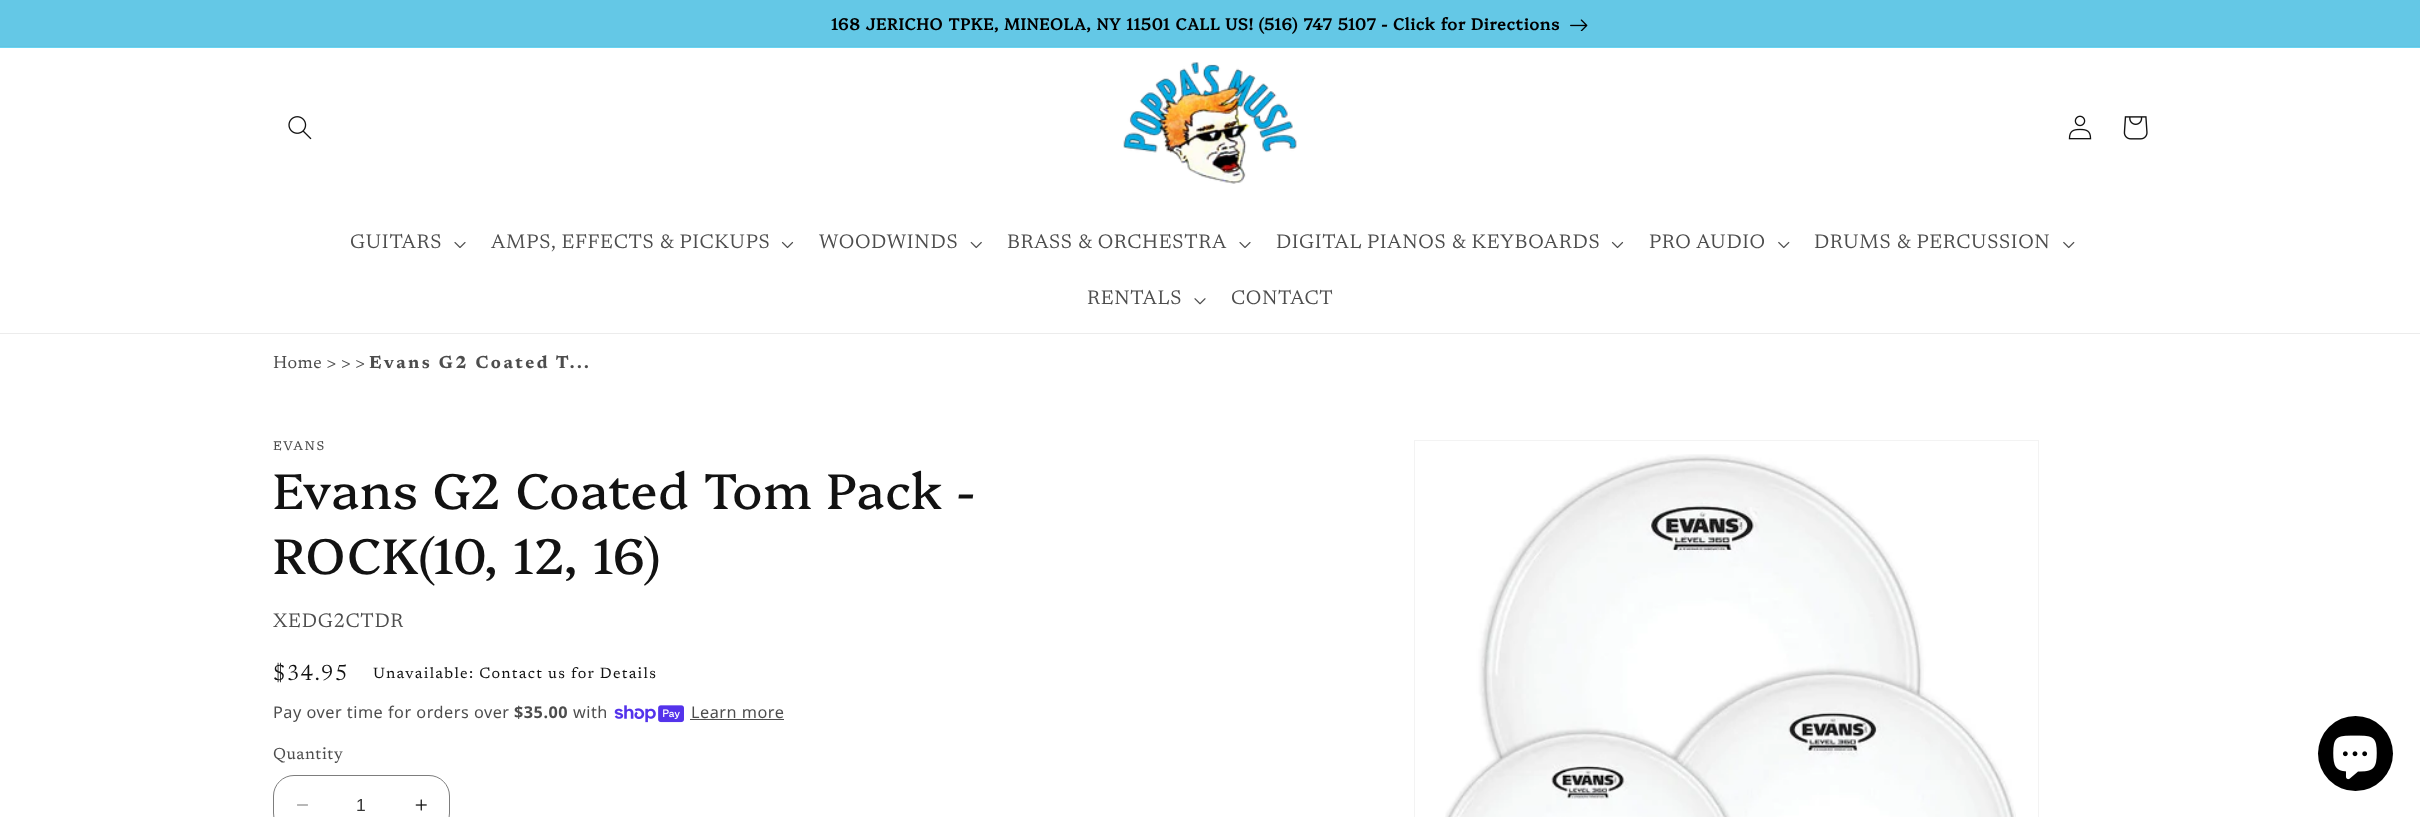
<!DOCTYPE html>
<meta charset="utf-8">
<style>body { margin: 0 } canvas { display: block }</style>
<canvas id="canvas" width="2420" height="817"></canvas>
<script type="module">
  const canvas = document.getElementById("canvas");
  const ctx = canvas.getContext("2d");
  ctx.miterLimit = 4;
  ctx.fontKerning = "normal";
  async function loadImage(src) {
    const img = new Image();
    img.src = src;
    await img.decode();
    return img;
  }

  ctx.fillStyle = "#ffffff";
  ctx.fillRect(0, 0, 2420, 817);
  ctx.fillStyle = "#69d4f3";
  ctx.fillRect(0, 47, 2420, 1);
  ctx.fillStyle = "#62c4e1";
  ctx.fillRect(0, 46, 2420, 1);
  ctx.fillStyle = "#64c8e6";
  ctx.fillRect(0, 0, 2420, 46);
  ctx.letterSpacing = "0.75px";
  ctx.font = "bold 16.25px Platypi";
  ctx.fillStyle = "#000000";
  ctx.fillText("168 JERICHO TPKE, MINEOLA, NY 11501 CALL US! (516) 747 5107 - Click for Directions", 831, 30);
  ctx.drawImage(await loadImage("img1.png"), 1570, 19, 18, 12);
  ctx.fillStyle = "#ececec";
  ctx.fillRect(0, 333, 2420, 1);
  ctx.drawImage(await loadImage("img2.png"), 288, 116, 24, 24);
  ctx.drawImage(await loadImage("img3.png"), 1123, 62, 174, 122);
  ctx.drawImage(await loadImage("img4.png"), 2068, 115, 24, 25);
  ctx.drawImage(await loadImage("img5.png"), 2123, 116, 25, 24);
  ctx.font = "20px 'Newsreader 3'";
  ctx.fillStyle = "#4d4d4d";
  ctx.fillText("GUITARS", 350, 248);
  ctx.drawImage(await loadImage("img6.png"), 454, 242, 12, 6);
  ctx.fillText("AMPS, EFFECTS & PICKUPS", 491, 248);
  ctx.drawImage(await loadImage("img7.png"), 781, 241, 13, 8);
  ctx.fillText("WOODWINDS", 819, 248);
  ctx.drawImage(await loadImage("img8.png"), 970, 241, 12, 8);
  ctx.fillText("BRASS & ORCHESTRA", 1007, 248);
  ctx.drawImage(await loadImage("img6.png"), 1239, 242, 12, 6);
  ctx.fillText("DIGITAL PIANOS & KEYBOARDS", 1276, 248);
  ctx.drawImage(await loadImage("img7.png"), 1611, 241, 13, 8);
  ctx.fillText("PRO AUDIO", 1649, 248);
  ctx.drawImage(await loadImage("img9.png"), 1778, 241, 12, 8);
  ctx.fillText("DRUMS & PERCUSSION", 1814, 248);
  ctx.drawImage(await loadImage("img9.png"), 2063, 241, 12, 8);
  ctx.fillText("RENTALS", 1087, 304);
  ctx.drawImage(await loadImage("img10.png"), 1194, 298, 12, 7);
  ctx.fillText("CONTACT", 1231, 304);
  ctx.letterSpacing = "0.5px";
  ctx.font = "17.5px Newsreader";
  ctx.fillText("Home > > >", 273, 368);
  ctx.letterSpacing = "2.5px";
  ctx.font = "bold 17.5px Newsreader";
  ctx.fillText("Evans G2 Coated T...", 369, 368);
  ctx.letterSpacing = "1.5px";
  ctx.font = "12.5px 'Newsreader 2'";
  ctx.fillText("EVANS", 273, 450);
  ctx.letterSpacing = "0.75px";
  ctx.font = "50px Platypi";
  ctx.fillStyle = "#121212";
  ctx.fillText("Evans G2 Coated Tom Pack -", 273, 509);
  ctx.fillText("ROCK(10, 12, 16)", 273, 574);
  ctx.font = "20px 'Newsreader 3'";
  ctx.fillStyle = "#4d4d4d";
  ctx.fillText("XEDG2CTDR", 273, 627);
  ctx.letterSpacing = "1.5px";
  ctx.font = "22.5px 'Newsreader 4'";
  ctx.fillStyle = "#121212";
  ctx.fillText("$34.95", 273, 680);
  ctx.letterSpacing = "1.25px";
  ctx.font = "15px 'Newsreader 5'";
  ctx.fillText("Unavailable: Contact us for Details", 373, 678);
  ctx.letterSpacing = "0.5px";
  ctx.font = "16.25px Noto Sans";
  ctx.fillStyle = "#4d4d4d";
  ctx.fillText("Pay over time for orders over", 273, 718);
  ctx.font = "bold 16.25px Noto Sans";
  ctx.fillText("$35.00", 514, 718);
  ctx.font = "16.25px Noto Sans";
  ctx.fillText("with", 573, 718);
  ctx.drawImage(await loadImage("img11.png"), 614, 705, 70, 18);
  ctx.fillText("Learn more", 691, 718);
  ctx.fillRect(690, 719, 94, 1);
  ctx.font = "16.25px 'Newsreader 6'";
  ctx.fillText("Quantity", 273, 759);
  ctx.drawImage(await loadImage("img12.png"), 297, 804, 11, 2);
  ctx.drawImage(await loadImage("img13.png"), 415, 799, 12, 12);
  ctx.beginPath();
  ctx.roundRect(273.5, 775.5, 176, 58, 20.5);
  ctx.strokeStyle = "#7d7d7d";
  ctx.stroke();
  ctx.letterSpacing = "0px";
  ctx.font = "17.5px Liberation Sans";
  ctx.fillStyle = "#363636";
  ctx.fillText("1", 356, 811);
  ctx.strokeStyle = "#f3f3f3";
  ctx.strokeRect(1414.5, 440.5, 624, 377);
  ctx.drawImage(await loadImage("img14.png"), 1445, 454, 571, 363);
  ctx.fillStyle = "#000000";
  ctx.beginPath();
  ctx.arc(2355.5, 753.5, 37.5, 0, Math.PI * 2);
  ctx.fill();
  ctx.drawImage(await loadImage("img15.png"), 2333, 735, 44, 45);
</script>
